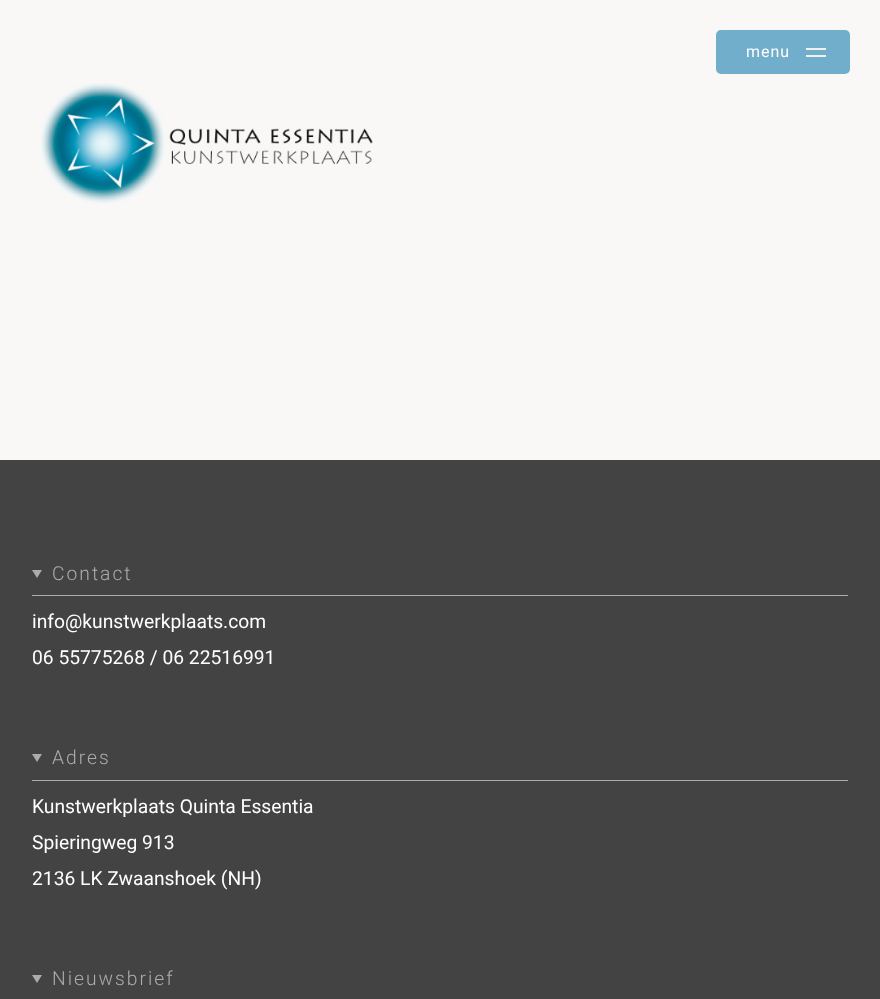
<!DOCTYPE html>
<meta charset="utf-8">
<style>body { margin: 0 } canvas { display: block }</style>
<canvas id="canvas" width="880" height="999"></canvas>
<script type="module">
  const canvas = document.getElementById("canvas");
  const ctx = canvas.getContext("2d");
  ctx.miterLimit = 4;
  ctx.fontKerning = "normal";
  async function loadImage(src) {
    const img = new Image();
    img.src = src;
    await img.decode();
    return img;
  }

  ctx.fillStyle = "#faf7f7";
  ctx.fillRect(0, 0, 880, 999);
  ctx.fillStyle = "#70aecb";
  ctx.beginPath();
  ctx.roundRect(716, 30, 134, 44, 5);
  ctx.fill();
  ctx.letterSpacing = "1px";
  ctx.font = "16px Roboto";
  ctx.fillStyle = "#ffffff";
  ctx.fillText("menu", 746, 57);
  ctx.fillStyle = "#f0f0f0";
  ctx.fillRect(806, 48, 20, 2);
  ctx.fillRect(806, 55, 20, 2);
  ctx.drawImage(await loadImage("img1.png"), 41, 83, 332, 121);
  ctx.fillStyle = "#434343";
  ctx.fillRect(0, 460, 880, 539);
  ctx.fillStyle = "#acacac";
  ctx.fillRect(32, 595, 816, 1);
  ctx.beginPath();
  ctx.moveTo(32, 570);
  ctx.lineTo(42, 570);
  ctx.lineTo(37, 578);
  ctx.closePath();
  ctx.fill();
  ctx.letterSpacing = "2px";
  ctx.font = "300 19.25px Roboto";
  ctx.fillText("Contact", 52, 580);
  ctx.letterSpacing = "0px";
  ctx.font = "19.25px Roboto";
  ctx.fillStyle = "#ffffff";
  ctx.fillText("info@kunstwerkplaats.com", 32, 628);
  ctx.fillText("06 55775268 / 06 22516991", 32, 664);
  ctx.fillStyle = "#acacac";
  ctx.fillRect(32, 780, 816, 1);
  ctx.beginPath();
  ctx.moveTo(32, 754);
  ctx.lineTo(42, 754);
  ctx.lineTo(37, 762);
  ctx.closePath();
  ctx.fill();
  ctx.letterSpacing = "2px";
  ctx.font = "300 19.25px Roboto";
  ctx.fillText("Adres", 52, 764);
  ctx.letterSpacing = "0px";
  ctx.font = "19.25px Roboto";
  ctx.fillStyle = "#ffffff";
  ctx.fillText("Kunstwerkplaats Quinta Essentia", 32, 813);
  ctx.fillText("Spieringweg 913", 32, 849);
  ctx.fillText("2136 LK Zwaanshoek (NH)", 32, 885);
  ctx.fillStyle = "#acacac";
  ctx.beginPath();
  ctx.moveTo(32, 975);
  ctx.lineTo(42, 975);
  ctx.lineTo(37, 983);
  ctx.closePath();
  ctx.fill();
  ctx.letterSpacing = "2px";
  ctx.font = "300 19.25px Roboto";
  ctx.fillText("Nieuwsbrief", 52, 985);
</script>
